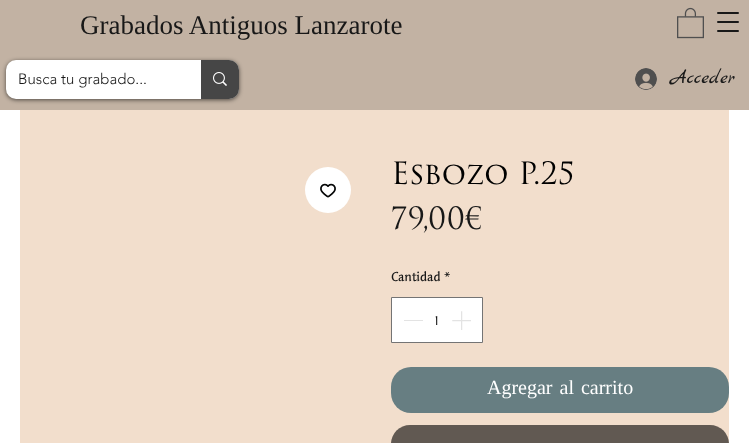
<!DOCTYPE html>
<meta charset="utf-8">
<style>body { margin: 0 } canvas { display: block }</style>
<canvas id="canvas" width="749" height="443"></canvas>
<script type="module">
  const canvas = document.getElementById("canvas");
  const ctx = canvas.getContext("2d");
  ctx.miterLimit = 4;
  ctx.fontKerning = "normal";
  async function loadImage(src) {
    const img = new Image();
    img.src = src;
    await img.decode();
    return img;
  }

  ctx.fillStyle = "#ffffff";
  ctx.fillRect(0, 0, 749, 443);
  ctx.fillStyle = "#c2b2a3";
  ctx.fillRect(0, 0, 749, 110);
  ctx.font = "27px Liberation Serif";
  ctx.fillStyle = "#181818";
  ctx.fillText("Grabados Antiguos Lanzarote", 80, 34);
  ctx.drawImage(await loadImage("img1.png"), 677, 7, 27, 32);
  ctx.beginPath();
  ctx.roundRect(717, 12, 22, 2, 1);
  ctx.fill();
  ctx.beginPath();
  ctx.roundRect(717, 21, 22, 2, 1);
  ctx.fill();
  ctx.beginPath();
  ctx.roundRect(717, 30, 22, 2, 1);
  ctx.fill();
  ctx.fillStyle = "rgba(0, 0, 0, 0.6)";
  ctx.filter = "blur(2px)";
  ctx.beginPath();
  ctx.roundRect(6, 61, 233, 39, 10);
  ctx.fill();
  ctx.filter = "none";
  ctx.fillStyle = "#ffffff";
  ctx.beginPath();
  ctx.roundRect(6, 60, 233, 39, 10);
  ctx.fill();
  ctx.font = "300 15px 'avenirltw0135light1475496'";
  ctx.fillStyle = "#181818";
  ctx.fillText("Busca tu grabado...", 18, 84);
  ctx.fillStyle = "rgba(24, 24, 24, 0.8)";
  ctx.beginPath();
  ctx.roundRect(201, 60, 38, 39, [0, 10, 10, 0]);
  ctx.fill();
  ctx.drawImage(await loadImage("img2.png"), 213, 72, 14, 14);
  ctx.drawImage(await loadImage("img3.png"), 635, 68, 22, 22);
  ctx.font = "20px Marck Script";
  ctx.fillStyle = "#181818";
  ctx.fillText("Acceder", 671, 83);
  ctx.fillStyle = "#f2decc";
  ctx.fillRect(20, 110, 709, 333);
  ctx.fillStyle = "#ffffff";
  ctx.beginPath();
  ctx.arc(328, 190, 23, 0, Math.PI * 2);
  ctx.fill();
  ctx.drawImage(await loadImage("img4.png"), 320, 183, 16, 15);
  ctx.font = "30px 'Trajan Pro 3'";
  ctx.fillStyle = "#000000";
  ctx.fillText("Esbozo P.25", 391, 184);
  ctx.fillStyle = "#181818";
  ctx.fillText("79,00€", 391, 229);
  ctx.font = "20px 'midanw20'";
  ctx.fillText("Cantidad", 391, 281);
  ctx.fillText("*", 444, 281);
  ctx.fillStyle = "#ffffff";
  ctx.beginPath();
  ctx.rect(391.5, 297.5, 91, 45);
  ctx.fill();
  ctx.strokeStyle = "#747474";
  ctx.stroke();
  ctx.fillStyle = "#e3e3e3";
  ctx.fillRect(404, 320, 19, 1);
  ctx.fillStyle = "#181818";
  ctx.fillText("1", 433, 325);
  ctx.drawImage(await loadImage("img5.png"), 452, 311, 19, 19);
  ctx.fillStyle = "#677e82";
  ctx.beginPath();
  ctx.roundRect(391, 367, 338, 46, 20);
  ctx.fill();
  ctx.wordSpacing = "2px";
  ctx.font = "20px Liberation Serif";
  ctx.fillStyle = "#ffffff";
  ctx.fillText("Agregar al carrito", 487, 394);
  ctx.fillStyle = "#615952";
  ctx.beginPath();
  ctx.roundRect(391, 425, 338, 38, 20);
  ctx.fill();
</script>
